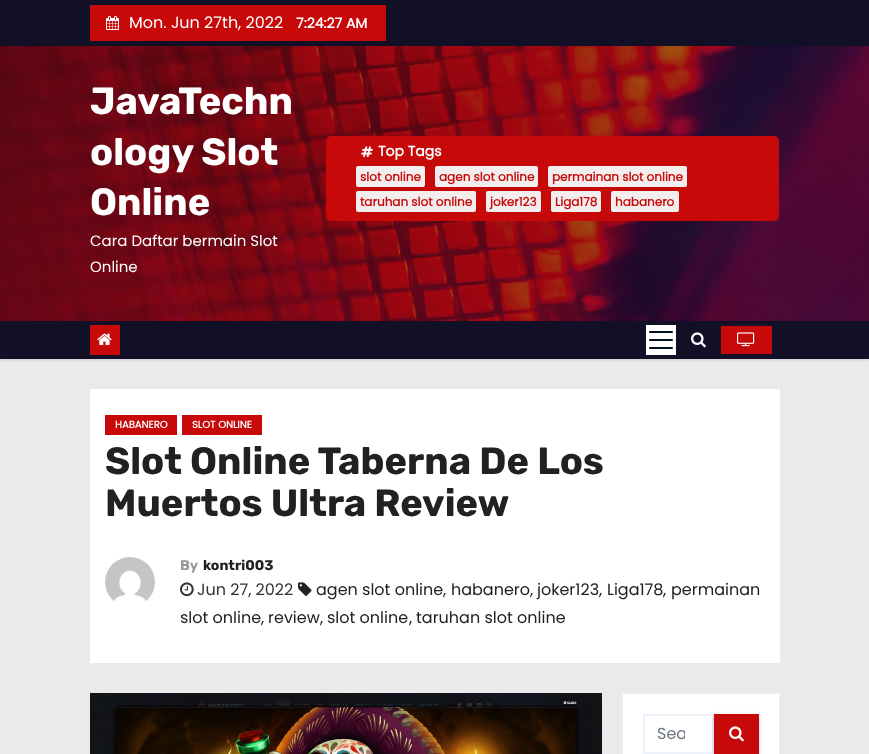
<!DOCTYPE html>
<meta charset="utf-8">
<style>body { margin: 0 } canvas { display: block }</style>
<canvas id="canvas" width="869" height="754"></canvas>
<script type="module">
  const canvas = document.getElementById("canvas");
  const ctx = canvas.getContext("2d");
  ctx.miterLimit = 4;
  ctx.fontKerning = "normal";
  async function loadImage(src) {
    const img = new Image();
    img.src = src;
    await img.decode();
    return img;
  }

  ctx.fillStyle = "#eaeaea";
  ctx.fillRect(0, 0, 869, 754);
  ctx.fillStyle = "#121026";
  ctx.fillRect(0, 0, 869, 46);
  ctx.fillStyle = "#c70909";
  ctx.fillRect(90, 5, 296, 36);
  ctx.drawImage(await loadImage("img1.png"), 106, 16, 13, 14);
  ctx.font = "16px Poppins";
  ctx.fillStyle = "#ffffff";
  ctx.fillText("Mon. Jun 27th, 2022", 129, 28);
  ctx.font = "bold 14px Poppins";
  ctx.fillText("7:24:27 AM", 296, 28);
  ctx.drawImage(await loadImage("img2.png"), 0, 46, 869, 275);
  ctx.font = "bold 38px Rubik";
  ctx.fillText("JavaTechn", 90, 114);
  ctx.fillText("ology Slot", 90, 165);
  ctx.fillText("Online", 90, 215);
  ctx.font = "15px Poppins";
  ctx.fillText("Cara Daftar bermain Slot", 90, 246);
  ctx.fillText("Online", 90, 272);
  ctx.fillStyle = "#c70909";
  ctx.beginPath();
  ctx.roundRect(326, 136, 453, 85, 5);
  ctx.fill();
  ctx.drawImage(await loadImage("img3.png"), 361, 146, 12, 11);
  ctx.font = "bold 14px Poppins";
  ctx.fillStyle = "#ffffff";
  ctx.fillText("Top Tags", 378, 156);
  ctx.fillStyle = "#f3eeee";
  ctx.beginPath();
  ctx.roundRect(356, 166, 69, 21, 2);
  ctx.fill();
  ctx.font = "bold 12px Poppins";
  ctx.fillStyle = "#c70909";
  ctx.fillText("slot online", 360, 181);
  ctx.fillStyle = "#f3eeee";
  ctx.beginPath();
  ctx.roundRect(435, 166, 103, 21, 2);
  ctx.fill();
  ctx.fillStyle = "#c70909";
  ctx.fillText("agen slot online", 439, 181);
  ctx.fillStyle = "#f3eeee";
  ctx.beginPath();
  ctx.roundRect(548, 166, 139, 21, 2);
  ctx.fill();
  ctx.fillStyle = "#c70909";
  ctx.fillText("permainan slot online", 552, 181);
  ctx.fillStyle = "#f3eeee";
  ctx.beginPath();
  ctx.roundRect(356, 191, 120, 21, 2);
  ctx.fill();
  ctx.fillStyle = "#c70909";
  ctx.fillText("taruhan slot online", 360, 206);
  ctx.fillStyle = "#f3eeee";
  ctx.beginPath();
  ctx.roundRect(486, 191, 55, 21, 2);
  ctx.fill();
  ctx.fillStyle = "#c70909";
  ctx.fillText("joker123", 490, 206);
  ctx.fillStyle = "#f3eeee";
  ctx.beginPath();
  ctx.roundRect(551, 191, 50, 21, 2);
  ctx.fill();
  ctx.fillStyle = "#c70909";
  ctx.fillText("Liga178", 555, 206);
  ctx.fillStyle = "#f3eeee";
  ctx.beginPath();
  ctx.roundRect(611, 191, 68, 21, 2);
  ctx.fill();
  ctx.fillStyle = "#c70909";
  ctx.fillText("habanero", 615, 206);
  ctx.fillStyle = "rgba(0, 0, 0, 0.08)";
  ctx.filter = "blur(1px)";
  ctx.beginPath();
  ctx.rect(0, 323, 869, 38);
  ctx.fill();
  ctx.filter = "none";
  ctx.fillStyle = "#121026";
  ctx.fillRect(0, 321, 869, 38);
  ctx.fillStyle = "#c70909";
  ctx.fillRect(90, 325, 30, 30);
  ctx.drawImage(await loadImage("img4.png"), 97, 333, 15, 12);
  ctx.fillStyle = "#ffffff";
  ctx.fillRect(646, 325, 30, 30);
  ctx.drawImage(await loadImage("img5.png"), 649, 331, 24, 18);
  ctx.drawImage(await loadImage("img6.png"), 691, 332, 15, 16);
  ctx.fillStyle = "#c70909";
  ctx.fillRect(721, 326, 51, 28);
  ctx.drawImage(await loadImage("img7.png"), 737, 332, 18, 15);
  ctx.fillStyle = "#ffffff";
  ctx.fillRect(90, 389, 690, 274);
  ctx.fillStyle = "#c70909";
  ctx.fillRect(105, 415, 72, 20);
  ctx.font = "bold 10px Poppins";
  ctx.fillStyle = "#ffffff";
  ctx.fillText("HABANERO", 115, 428);
  ctx.fillStyle = "#c70909";
  ctx.fillRect(182, 415, 80, 20);
  ctx.fillStyle = "#ffffff";
  ctx.fillText("SLOT ONLINE", 192, 428);
  ctx.font = "bold 38px Rubik";
  ctx.fillStyle = "#212121";
  ctx.fillText("Slot Online Taberna De Los", 105, 474);
  ctx.fillText("Muertos Ultra Review", 105, 516);
  ctx.drawImage(await loadImage("img8.png"), 105, 557, 50, 44);
  ctx.font = "bold 14px Rubik";
  ctx.fillStyle = "#999999";
  ctx.fillText("By", 180, 570);
  ctx.fillStyle = "#212121";
  ctx.fillText("kontri003", 203, 570);
  ctx.drawImage(await loadImage("img9.png"), 298, 582, 14, 14);
  ctx.font = "16px Poppins";
  ctx.fillText("agen slot online", 316, 595);
  ctx.fillText(",", 443, 595);
  ctx.fillText("habanero", 451, 595);
  ctx.fillText(",", 530, 595);
  ctx.fillText("joker123", 537, 595);
  ctx.fillText(",", 599, 595);
  ctx.fillText("Liga178", 607, 595);
  ctx.fillText(",", 663, 595);
  ctx.fillText("permainan", 671, 595);
  ctx.fillText("slot online", 180, 623);
  ctx.fillText(",", 261, 623);
  ctx.fillText("review", 268, 623);
  ctx.fillText(",", 320, 623);
  ctx.fillText("slot online", 327, 623);
  ctx.fillText(",", 409, 623);
  ctx.fillText("taruhan slot online", 416, 623);
  ctx.drawImage(await loadImage("img10.png"), 180, 582, 14, 15);
  ctx.fillStyle = "#333333";
  ctx.fillText("Jun 27, 2022", 197, 595);
  ctx.drawImage(await loadImage("img11.png"), 90, 693, 512, 61);
  ctx.fillStyle = "#ffffff";
  ctx.beginPath();
  ctx.rect(622.5, 693.5, 157, 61);
  ctx.fill();
  ctx.strokeStyle = "#eeeeee";
  ctx.stroke();
  ctx.strokeStyle = "#eef3fb";
  ctx.lineWidth = 2;
  ctx.strokeRect(644, 715, 69, 38);
  ctx.save();
  ctx.beginPath();
  ctx.rect(657, 721, 28, 25);
  ctx.clip();
  ctx.fillStyle = "#6c757d";
  ctx.fillText("Sea", 657, 739);
  ctx.restore();
  ctx.fillStyle = "rgba(0, 0, 0, 0.12)";
  ctx.filter = "blur(2.5px)";
  ctx.beginPath();
  ctx.rect(714, 715, 45, 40);
  ctx.fill();
  ctx.filter = "none";
  ctx.fillStyle = "rgba(0, 0, 0, 0.14)";
  ctx.filter = "blur(1px)";
  ctx.beginPath();
  ctx.rect(714, 716, 45, 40);
  ctx.fill();
  ctx.filter = "none";
  ctx.fillStyle = "#c70909";
  ctx.fillRect(714, 714, 45, 40);
  ctx.drawImage(await loadImage("img12.png"), 729, 726, 15, 16);
</script>
